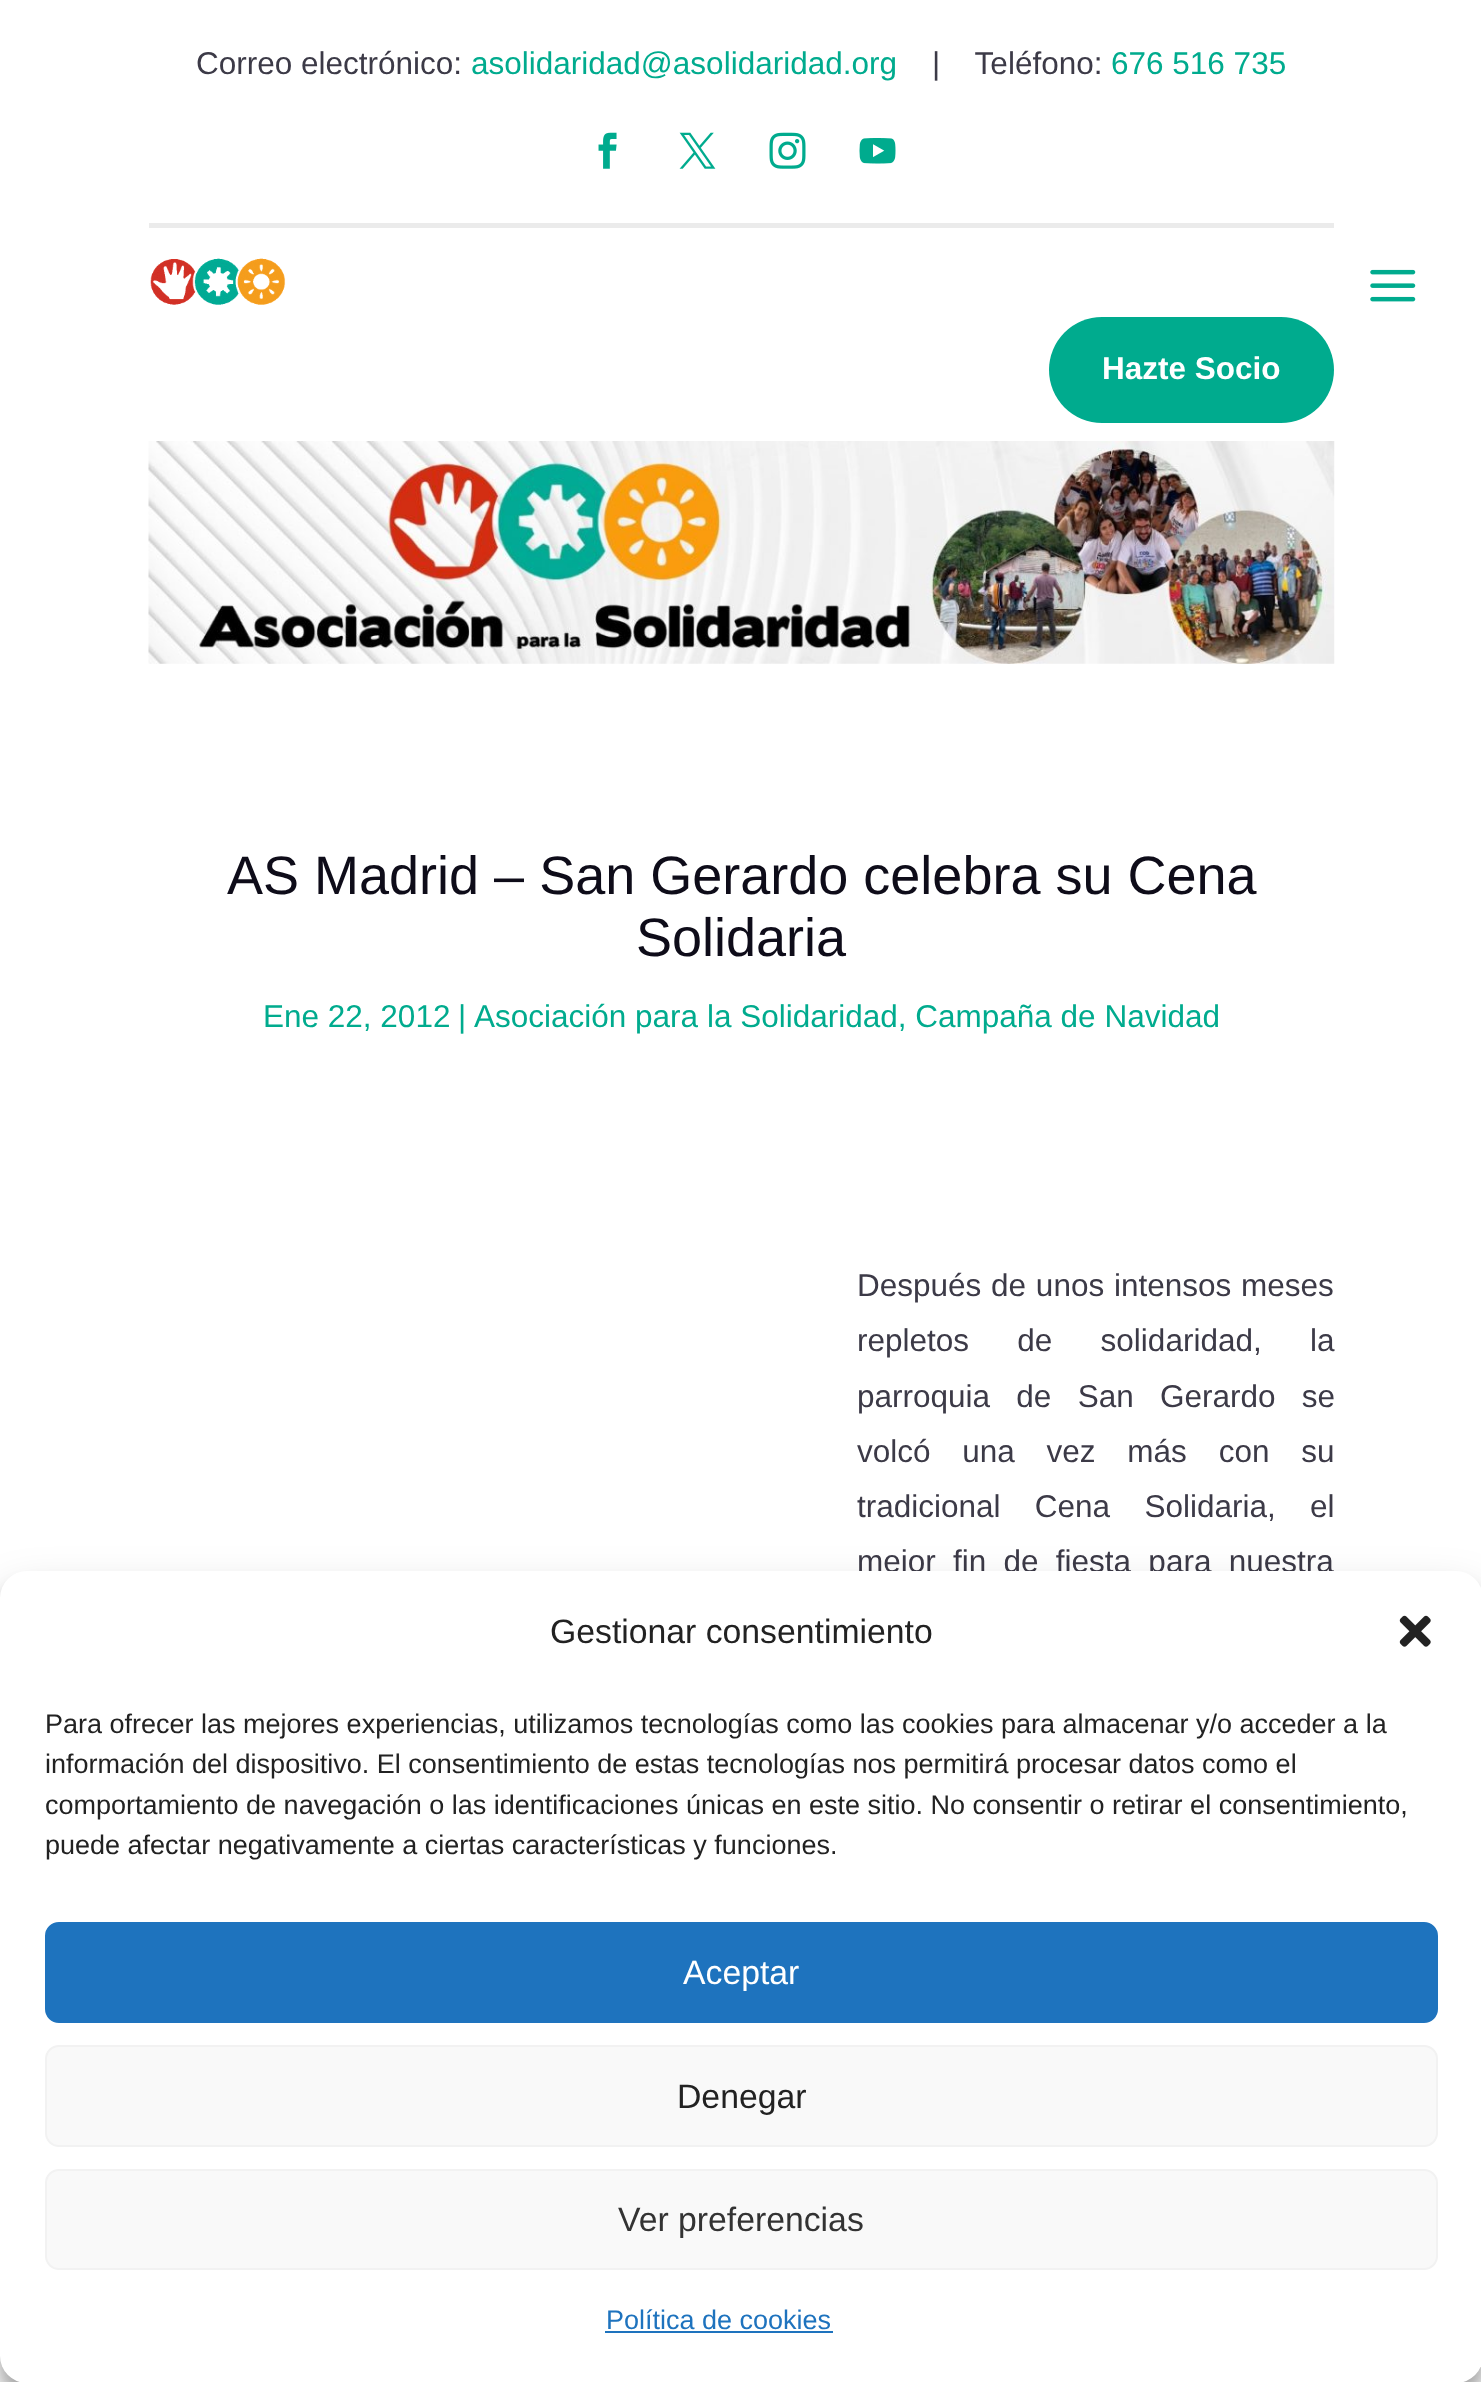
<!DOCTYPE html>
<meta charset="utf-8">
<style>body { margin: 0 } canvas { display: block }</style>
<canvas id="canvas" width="1481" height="2382"></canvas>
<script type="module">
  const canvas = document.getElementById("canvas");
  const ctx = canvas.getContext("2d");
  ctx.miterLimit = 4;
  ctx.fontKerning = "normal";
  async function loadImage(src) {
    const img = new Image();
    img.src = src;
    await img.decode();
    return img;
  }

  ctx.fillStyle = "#ffffff";
  ctx.fillRect(0, 0, 1481, 2382);
  ctx.fillStyle = "#ebebeb";
  ctx.fillRect(149, 223, 1185, 5);
  ctx.font = "31.5px Liberation Sans";
  ctx.fillStyle = "#3c3a47";
  ctx.fillText("Correo electrónico:", 196, 74);
  ctx.fillStyle = "#00ab8e";
  ctx.fillText("asolidaridad@asolidaridad.org", 471, 74);
  ctx.fillStyle = "#3c3a47";
  ctx.fillText("|    Teléfono:", 932, 74);
  ctx.fillStyle = "#00ab8e";
  ctx.fillText("676 516 735", 1111, 74);
  ctx.drawImage(await loadImage("img1.png"), 598, 132, 19, 37);
  ctx.drawImage(await loadImage("img2.png"), 679, 132, 37, 37);
  ctx.drawImage(await loadImage("img3.png"), 769, 132, 37, 37);
  ctx.drawImage(await loadImage("img4.png"), 859, 138, 37, 26);
  ctx.drawImage(await loadImage("img5.png"), 150, 258, 136, 47);
  ctx.drawImage(await loadImage("img6.png"), 1370, 269, 46, 33);
  ctx.beginPath();
  ctx.roundRect(1049, 317, 285, 106, 53);
  ctx.fill();
  ctx.font = "bold 31.5px Liberation Sans";
  ctx.fillStyle = "#ffffff";
  ctx.fillText("Hazte Socio", 1102, 379);
  ctx.drawImage(await loadImage("img7.png"), 148, 441, 1187, 223);
  ctx.font = "54px Liberation Sans";
  ctx.fillStyle = "#0e0c19";
  ctx.fillText("AS Madrid – San Gerardo celebra su Cena", 227, 894);
  ctx.fillText("Solidaria", 636, 956);
  ctx.font = "31.5px Liberation Sans";
  ctx.fillStyle = "#00ab8e";
  ctx.fillText("Ene 22, 2012", 263, 1027);
  ctx.fillText("|", 458, 1027);
  ctx.fillText("Asociación para la Solidaridad, Campaña de Navidad", 474, 1027);
  ctx.wordSpacing = "1px";
  ctx.fillStyle = "#3c3a47";
  ctx.fillText("Después de unos intensos meses", 857, 1296);
  ctx.wordSpacing = "39.5px";
  ctx.fillText("repletos de solidaridad, la", 857, 1351);
  ctx.wordSpacing = "17.5px";
  ctx.fillText("parroquia de San Gerardo se", 857, 1407);
  ctx.wordSpacing = "23px";
  ctx.fillText("volcó una vez más con su", 857, 1462);
  ctx.wordSpacing = "25.5px";
  ctx.fillText("tradicional Cena Solidaria, el", 857, 1517);
  ctx.wordSpacing = "8.5px";
  ctx.fillText("mejor fin de fiesta para nuestra", 857, 1572);
  ctx.fillStyle = "rgba(0, 0, 0, 0.23)";
  ctx.filter = "blur(7px)";
  ctx.beginPath();
  ctx.roundRect(0, 1584, 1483, 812, 27);
  ctx.fill();
  ctx.filter = "none";
  ctx.fillStyle = "rgba(0, 0, 0, 0.19)";
  ctx.filter = "blur(22.5px)";
  ctx.beginPath();
  ctx.roundRect(0, 1593, 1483, 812, 27);
  ctx.fill();
  ctx.filter = "none";
  ctx.fillStyle = "#ffffff";
  ctx.beginPath();
  ctx.roundRect(0, 1571, 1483, 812, 27);
  ctx.fill();
  ctx.wordSpacing = "0px";
  ctx.font = "33.75px Liberation Sans";
  ctx.fillStyle = "#222222";
  ctx.fillText("Gestionar consentimiento", 550, 1643);
  ctx.drawImage(await loadImage("img8.png"), 1399, 1615, 32, 32);
  ctx.font = "27px Liberation Sans";
  ctx.fillText("Para ofrecer las mejores experiencias, utilizamos tecnologías como las cookies para almacenar y/o acceder a la", 45, 1733);
  ctx.fillText("información del dispositivo. El consentimiento de estas tecnologías nos permitirá procesar datos como el", 45, 1773);
  ctx.fillText("comportamiento de navegación o las identificaciones únicas en este sitio. No consentir o retirar el consentimiento,", 45, 1814);
  ctx.fillText("puede afectar negativamente a ciertas características y funciones.", 45, 1854);
  ctx.fillStyle = "#1e73be";
  ctx.beginPath();
  ctx.roundRect(46, 1923, 1391, 99, 13);
  ctx.fill();
  ctx.strokeStyle = "#1e73be";
  ctx.lineWidth = 2;
  ctx.stroke();
  ctx.font = "33.75px Liberation Sans";
  ctx.fillStyle = "#ffffff";
  ctx.fillText("Aceptar", 683, 1984);
  ctx.fillStyle = "#f9f9f9";
  ctx.beginPath();
  ctx.roundRect(46, 2046, 1391, 100, 13);
  ctx.fill();
  ctx.strokeStyle = "#f2f2f2";
  ctx.stroke();
  ctx.fillStyle = "#222222";
  ctx.fillText("Denegar", 677, 2108);
  ctx.fillStyle = "#f9f9f9";
  ctx.beginPath();
  ctx.roundRect(46, 2170, 1391, 99, 13);
  ctx.fill();
  ctx.stroke();
  ctx.fillStyle = "#333333";
  ctx.fillText("Ver preferencias", 618, 2231);
  ctx.font = "27px Liberation Sans";
  ctx.fillStyle = "#1e73be";
  ctx.fillText("Política de cookies", 606, 2329);
  ctx.fillRect(605, 2331, 228, 2);
</script>
